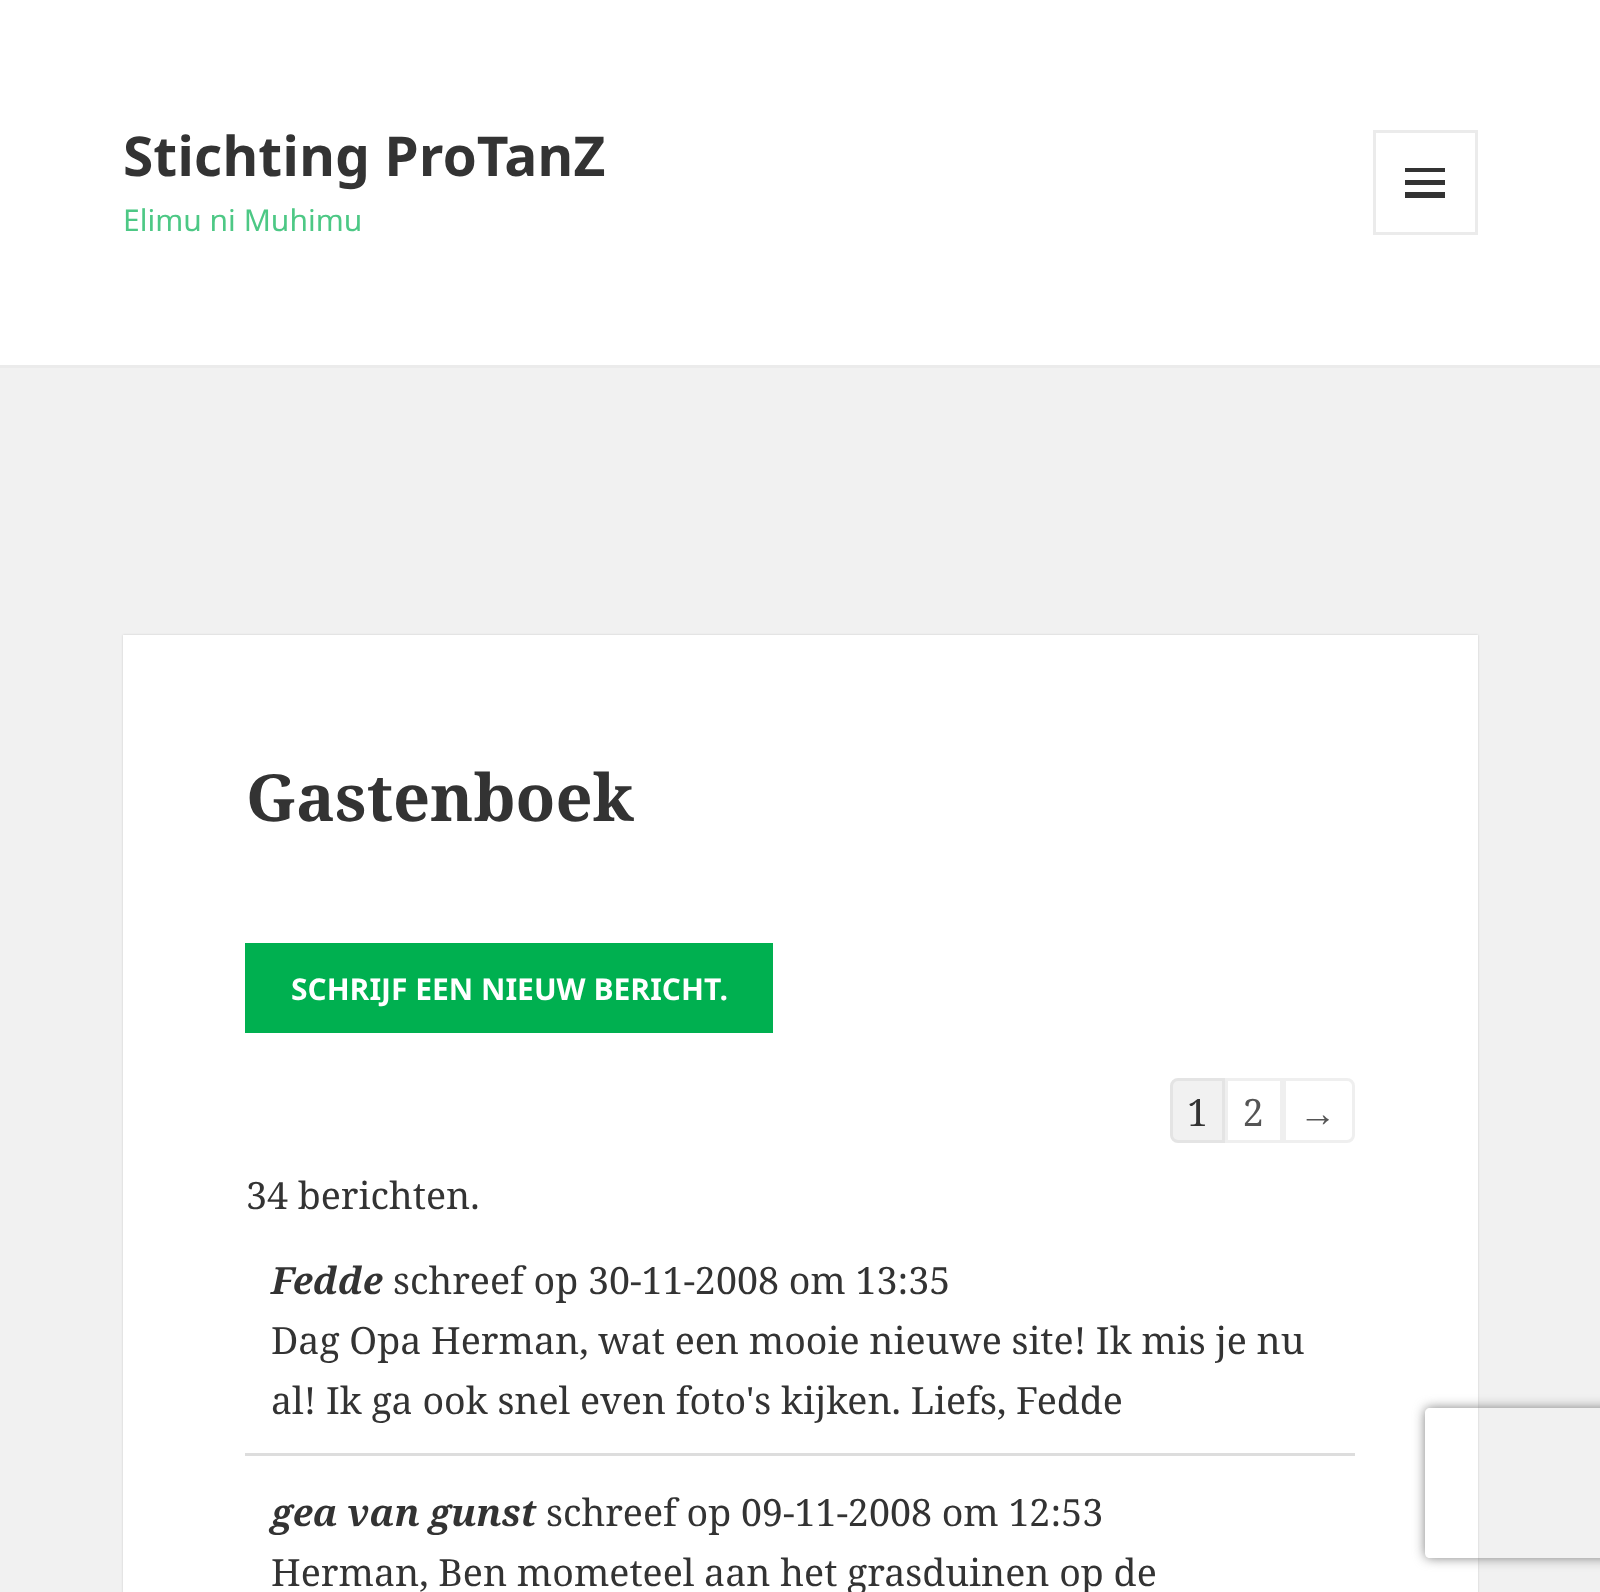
<!DOCTYPE html>
<meta charset="utf-8">
<style>body { margin: 0 } canvas { display: block }</style>
<canvas id="canvas" width="1600" height="1592"></canvas>
<script type="module">
  const canvas = document.getElementById("canvas");
  const ctx = canvas.getContext("2d");
  ctx.miterLimit = 4;
  ctx.fontKerning = "normal";

  ctx.fillStyle = "#f1f1f1";
  ctx.fillRect(0, 0, 1600, 1592);
  ctx.fillStyle = "#ffffff";
  ctx.fillRect(0, 0, 1600, 365);
  ctx.fillStyle = "#ebebeb";
  ctx.fillRect(0, 365, 1600, 3);
  ctx.font = "bold 55px Noto Sans";
  ctx.fillStyle = "#333333";
  ctx.fillText("Stichting ProTanZ", 123, 176);
  ctx.strokeStyle = "#ebebeb";
  ctx.lineWidth = 3;
  ctx.strokeRect(1374.5, 131.5, 102, 102);
  ctx.beginPath();
  ctx.moveTo(1405, 198);
  ctx.lineTo(1405, 192);
  ctx.lineTo(1445, 192);
  ctx.lineTo(1445, 198);
  ctx.closePath();
  ctx.moveTo(1405, 168);
  ctx.lineTo(1445, 168);
  ctx.lineTo(1445, 172);
  ctx.lineTo(1405, 172);
  ctx.closePath();
  ctx.moveTo(1405, 185);
  ctx.lineTo(1405, 180);
  ctx.lineTo(1445, 180);
  ctx.lineTo(1445, 185);
  ctx.closePath();
  ctx.fill();
  ctx.font = "30px Noto Sans";
  ctx.fillStyle = "#4dc885";
  ctx.fillText("Elimu ni Muhimu", 123, 231);
  ctx.fillStyle = "rgba(0, 0, 0, 0.15)";
  ctx.filter = "blur(1px)";
  ctx.beginPath();
  ctx.rect(123, 635, 1355, 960);
  ctx.fill();
  ctx.filter = "none";
  ctx.fillStyle = "#ffffff";
  ctx.fillRect(123, 635, 1355, 957);
  ctx.font = "bold 65px Noto Serif";
  ctx.fillStyle = "#333333";
  ctx.fillText("Gastenboek", 246, 821);
  ctx.fillStyle = "#00b050";
  ctx.fillRect(245, 943, 528, 90);
  ctx.font = "bold 30px Noto Sans";
  ctx.fillStyle = "#ffffff";
  ctx.fillText("SCHRIJF EEN NIEUW BERICHT.", 291, 1000);
  ctx.fillStyle = "#f1f1f1";
  ctx.beginPath();
  ctx.roundRect(1171.5, 1079.5, 52, 62, [6.5, 0, 0, 6.5]);
  ctx.fill();
  ctx.strokeStyle = "#e4e4e4";
  ctx.stroke();
  ctx.font = "37.5px Noto Serif";
  ctx.fillStyle = "#333333";
  ctx.fillText("1", 1187, 1126);
  ctx.strokeStyle = "#efefef";
  ctx.strokeRect(1226.5, 1079.5, 55, 62);
  ctx.fillStyle = "#555555";
  ctx.fillText("2", 1243, 1126);
  ctx.beginPath();
  ctx.roundRect(1284.5, 1079.5, 69, 62, [0, 6.5, 6.5, 0]);
  ctx.stroke();
  ctx.font = "37.5px Liberation Serif";
  ctx.fillText("→", 1299, 1126);
  ctx.font = "37.5px Noto Serif";
  ctx.fillStyle = "#333333";
  ctx.fillText("34 berichten.", 246, 1209);
  ctx.font = "italic bold 37.5px Noto Serif";
  ctx.fillText("Fedde", 271, 1294);
  ctx.font = "37.5px Noto Serif";
  ctx.fillText("schreef op 30-11-2008 om 13:35", 393, 1294);
  ctx.fillText("Dag Opa Herman, wat een mooie nieuwe site! Ik mis je nu", 271, 1354);
  ctx.fillText("al! Ik ga ook snel even foto's kijken. Liefs, Fedde", 271, 1414);
  ctx.fillStyle = "#dddddd";
  ctx.fillRect(245, 1453, 1110, 3);
  ctx.font = "italic bold 37.5px Noto Serif";
  ctx.fillStyle = "#333333";
  ctx.fillText("gea van gunst", 271, 1526);
  ctx.font = "37.5px Noto Serif";
  ctx.fillText("schreef op 09-11-2008 om 12:53", 546, 1526);
  ctx.fillText("Herman, Ben mometeel aan het grasduinen op de", 271, 1586);
  ctx.save();
  ctx.beginPath();
  ctx.moveTo(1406, 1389);
  ctx.lineTo(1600, 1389);
  ctx.lineTo(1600, 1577);
  ctx.lineTo(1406, 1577);
  ctx.closePath();
  ctx.moveTo(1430, 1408);
  ctx.lineTo(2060, 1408);
  ctx.bezierCurveTo(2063, 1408, 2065, 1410, 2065, 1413);
  ctx.lineTo(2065, 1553);
  ctx.bezierCurveTo(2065, 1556, 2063, 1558, 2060, 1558);
  ctx.lineTo(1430, 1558);
  ctx.bezierCurveTo(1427, 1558, 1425, 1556, 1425, 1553);
  ctx.lineTo(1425, 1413);
  ctx.bezierCurveTo(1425, 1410, 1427, 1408, 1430, 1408);
  ctx.closePath();
  ctx.clip("evenodd");
  ctx.fillStyle = "#808080";
  ctx.filter = "blur(6px)";
  ctx.beginPath();
  ctx.roundRect(1425, 1408, 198, 150, 5);
  ctx.fill();
  ctx.filter = "none";
  ctx.restore();
</script>
